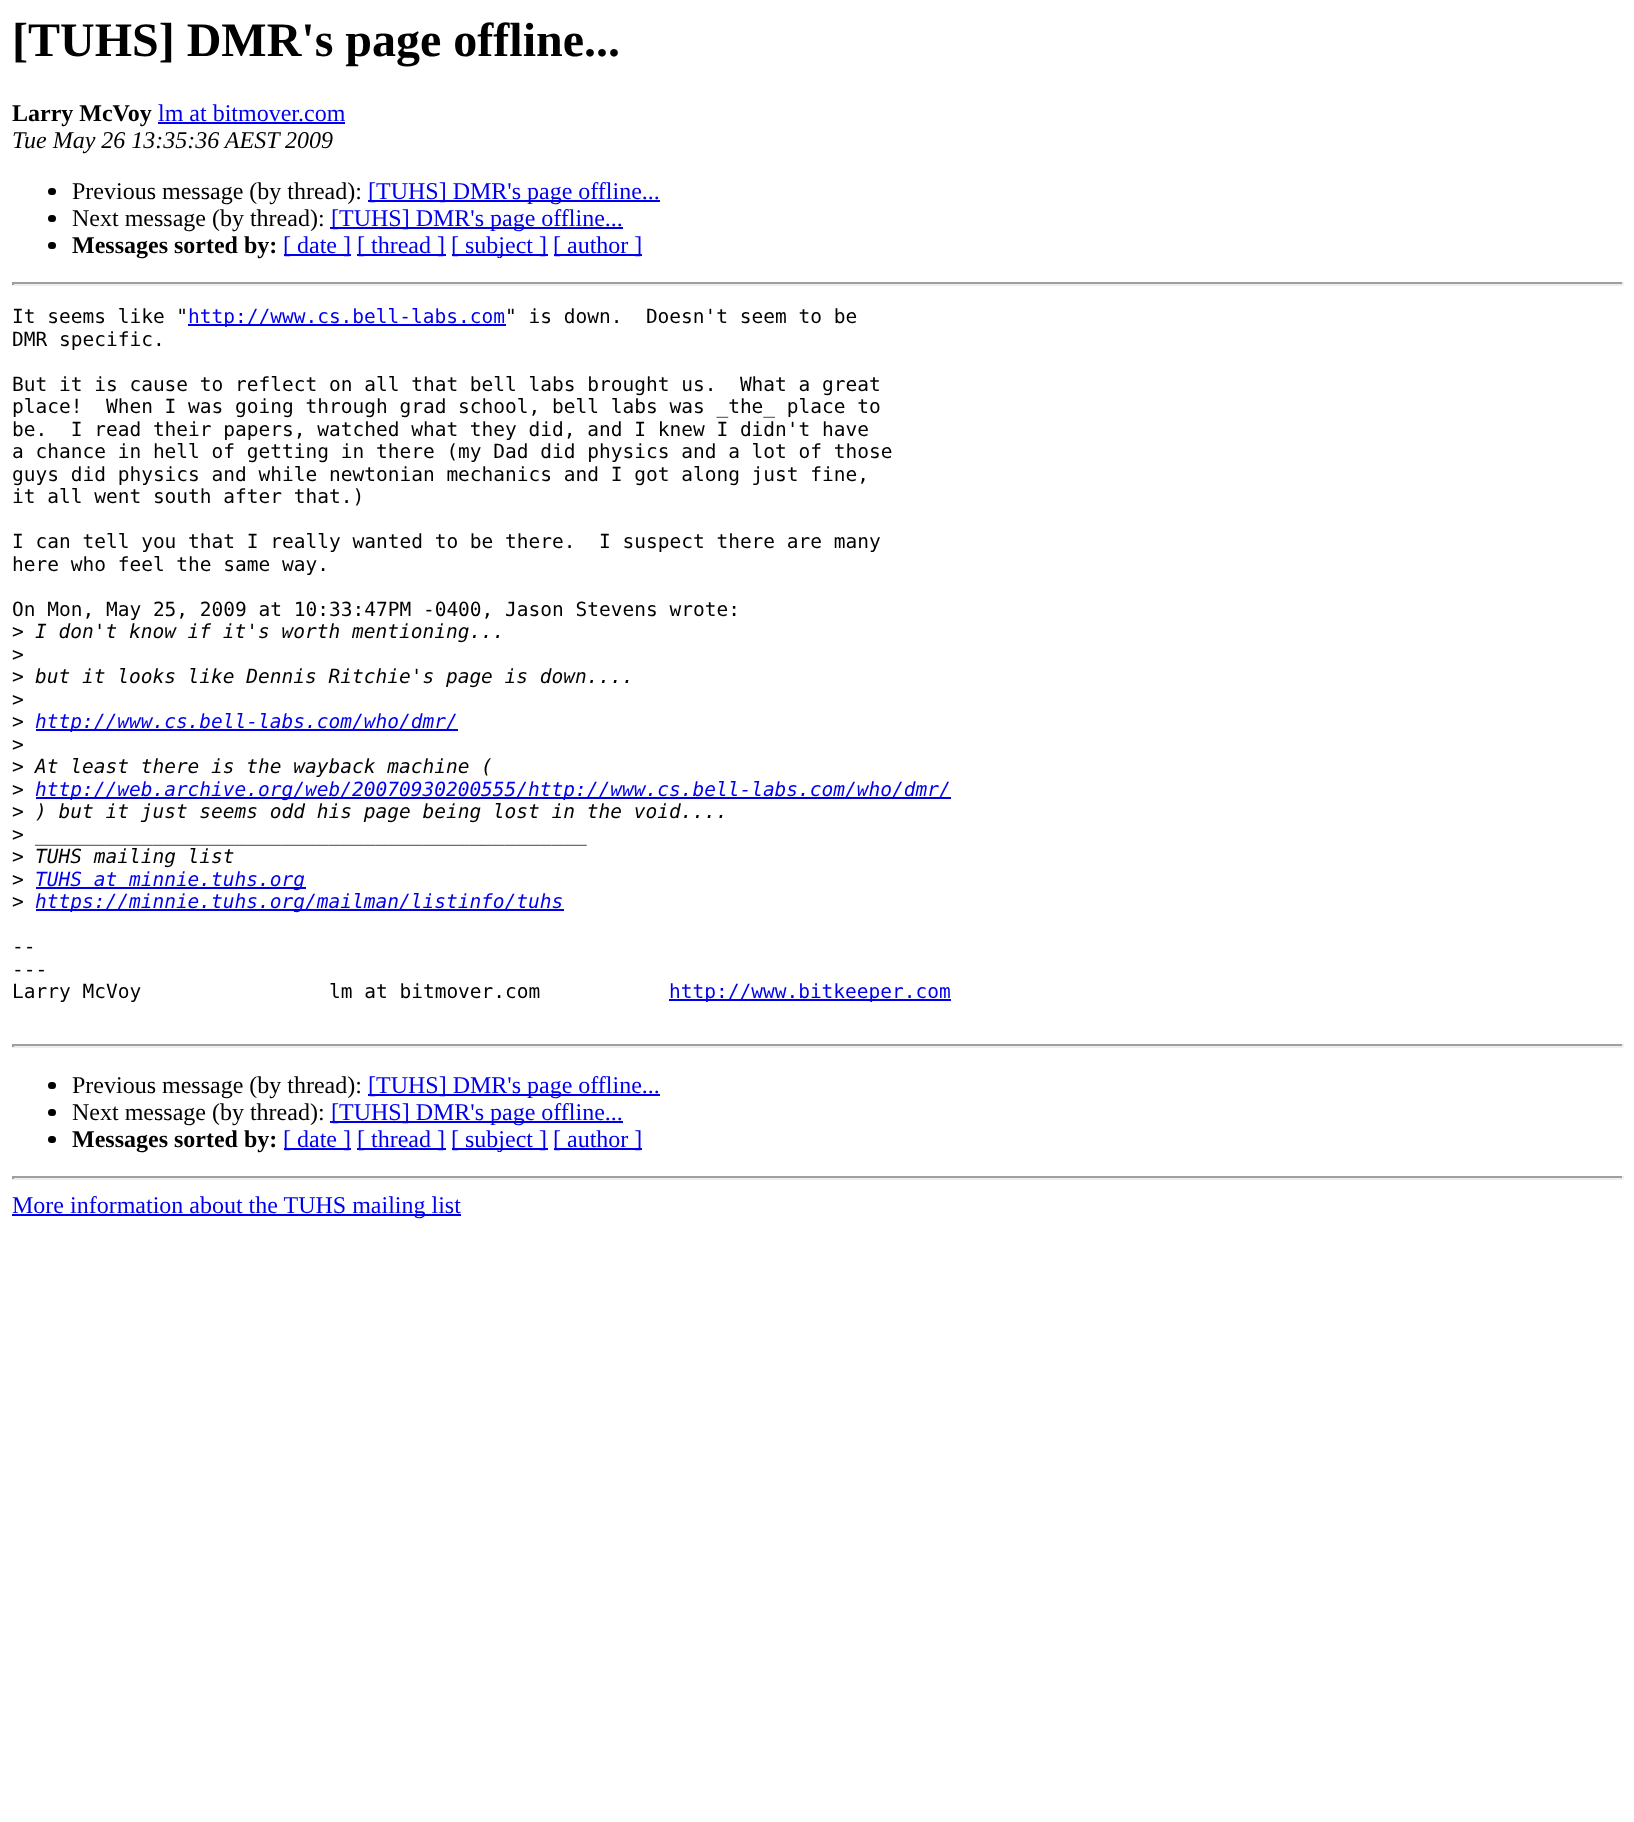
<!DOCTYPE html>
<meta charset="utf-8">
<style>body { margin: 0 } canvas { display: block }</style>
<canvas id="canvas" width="1634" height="1822"></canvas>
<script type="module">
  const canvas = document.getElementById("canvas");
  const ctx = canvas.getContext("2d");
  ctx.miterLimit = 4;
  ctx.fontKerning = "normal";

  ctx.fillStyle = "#ffffff";
  ctx.fillRect(0, 0, 1634, 1822);
  ctx.font = "bold 48px Liberation Serif";
  ctx.fillStyle = "#000000";
  ctx.fillText("[TUHS] DMR's page offline...", 12, 56);
  ctx.font = "bold 24px Liberation Serif";
  ctx.fillText("Larry McVoy", 12, 121);
  ctx.font = "24px Liberation Serif";
  ctx.fillStyle = "#0000ee";
  ctx.fillText("lm at bitmover.com", 158, 121);
  ctx.fillRect(158, 122, 187, 2);
  ctx.font = "italic 24px Liberation Serif";
  ctx.fillStyle = "#000000";
  ctx.fillText("Tue May 26 13:35:36 AEST 2009", 12, 148);
  ctx.beginPath();
  ctx.roundRect(48, 188, 8, 7, 3.5);
  ctx.fill();
  ctx.font = "24px Liberation Serif";
  ctx.fillText("Previous message (by thread):", 72, 199);
  ctx.fillStyle = "#0000ee";
  ctx.fillRect(368, 200, 292, 2);
  ctx.fillText("[TUHS] DMR's page offline...", 368, 199);
  ctx.fillStyle = "#000000";
  ctx.beginPath();
  ctx.roundRect(48, 215, 8, 7, 3.5);
  ctx.fill();
  ctx.fillText("Next message (by thread):", 72, 226);
  ctx.fillStyle = "#0000ee";
  ctx.fillRect(330, 227, 293, 2);
  ctx.fillText("[TUHS] DMR's page offline...", 331, 226);
  ctx.fillStyle = "#000000";
  ctx.beginPath();
  ctx.roundRect(48, 242, 8, 7, 3.5);
  ctx.fill();
  ctx.font = "bold 24px Liberation Serif";
  ctx.fillText("Messages sorted by:", 72, 253);
  ctx.fillStyle = "#0000ee";
  ctx.fillRect(284, 254, 67, 2);
  ctx.font = "24px Liberation Serif";
  ctx.fillText("[ date ]", 283, 253);
  ctx.fillRect(357, 254, 89, 2);
  ctx.fillText("[ thread ]", 357, 253);
  ctx.fillRect(452, 254, 96, 2);
  ctx.fillText("[ subject ]", 451, 253);
  ctx.fillRect(554, 254, 88, 2);
  ctx.fillText("[ author ]", 553, 253);
  ctx.fillStyle = "#9f9f9f";
  ctx.fillRect(12, 282, 1611, 2);
  ctx.fillStyle = "#eeeeee";
  ctx.fillRect(1622, 282, 2, 3);
  ctx.fillRect(12, 284, 1611, 2);
  ctx.fillStyle = "#9f9f9f";
  ctx.fillRect(12, 282, 2, 3);
  ctx.font = "19.5px DejaVu Sans Mono";
  ctx.fillStyle = "#000000";
  ctx.fillText("It seems like \"", 12, 323);
  ctx.fillStyle = "#0000ee";
  ctx.fillRect(188, 324, 318, 2);
  ctx.fillText("http://www.cs.bell-labs.com", 188, 323);
  ctx.fillStyle = "#000000";
  ctx.fillText("\" is down.  Doesn't seem to be", 505, 323);
  ctx.fillText("DMR specific.", 12, 346);
  ctx.fillText("But it is cause to reflect on all that bell labs brought us.  What a great", 12, 391);
  ctx.fillText("place!  When I was going through grad school, bell labs was _the_ place to", 12, 413);
  ctx.fillText("be.  I read their papers, watched what they did, and I knew I didn't have", 12, 436);
  ctx.fillText("a chance in hell of getting in there (my Dad did physics and a lot of those", 12, 458);
  ctx.fillText("guys did physics and while newtonian mechanics and I got along just fine,", 12, 481);
  ctx.fillText("it all went south after that.)", 12, 503);
  ctx.fillText("I can tell you that I really wanted to be there.  I suspect there are many", 12, 548);
  ctx.fillText("here who feel the same way.", 12, 571);
  ctx.fillText("On Mon, May 25, 2009 at 10:33:47PM -0400, Jason Stevens wrote:", 12, 616);
  ctx.fillText(">", 12, 638);
  ctx.font = "italic 19.5px DejaVu Sans Mono";
  ctx.fillText("I don't know if it's worth mentioning...", 35, 638);
  ctx.font = "19.5px DejaVu Sans Mono";
  ctx.fillText(">", 12, 661);
  ctx.fillText(">", 12, 683);
  ctx.font = "italic 19.5px DejaVu Sans Mono";
  ctx.fillText("but it looks like Dennis Ritchie's page is down....", 35, 683);
  ctx.font = "19.5px DejaVu Sans Mono";
  ctx.fillText(">", 12, 706);
  ctx.fillText(">", 12, 728);
  ctx.fillStyle = "#0000ee";
  ctx.fillRect(36, 729, 422, 2);
  ctx.font = "italic 19.5px DejaVu Sans Mono";
  ctx.fillText("http://www.cs.bell-labs.com/who/dmr/", 35, 728);
  ctx.font = "19.5px DejaVu Sans Mono";
  ctx.fillStyle = "#000000";
  ctx.fillText(">", 12, 751);
  ctx.fillText(">", 12, 773);
  ctx.font = "italic 19.5px DejaVu Sans Mono";
  ctx.fillText("At least there is the wayback machine (", 35, 773);
  ctx.font = "19.5px DejaVu Sans Mono";
  ctx.fillText(">", 12, 796);
  ctx.fillStyle = "#0000ee";
  ctx.fillRect(36, 797, 915, 2);
  ctx.font = "italic 19.5px DejaVu Sans Mono";
  ctx.fillText("http://web.archive.org/web/20070930200555/http://www.cs.bell-labs.com/who/dmr/", 35, 796);
  ctx.font = "19.5px DejaVu Sans Mono";
  ctx.fillStyle = "#000000";
  ctx.fillText(">", 12, 818);
  ctx.font = "italic 19.5px DejaVu Sans Mono";
  ctx.fillText(") but it just seems odd his page being lost in the void....", 35, 818);
  ctx.font = "19.5px DejaVu Sans Mono";
  ctx.fillText(">", 12, 841);
  ctx.font = "italic 19.5px DejaVu Sans Mono";
  ctx.fillText("_______________________________________________", 35, 841);
  ctx.font = "19.5px DejaVu Sans Mono";
  ctx.fillText(">", 12, 863);
  ctx.font = "italic 19.5px DejaVu Sans Mono";
  ctx.fillText("TUHS mailing list", 35, 863);
  ctx.font = "19.5px DejaVu Sans Mono";
  ctx.fillText(">", 12, 886);
  ctx.fillStyle = "#0000ee";
  ctx.fillRect(36, 887, 270, 2);
  ctx.font = "italic 19.5px DejaVu Sans Mono";
  ctx.fillText("TUHS at minnie.tuhs.org", 35, 886);
  ctx.font = "19.5px DejaVu Sans Mono";
  ctx.fillStyle = "#000000";
  ctx.fillText(">", 12, 908);
  ctx.fillStyle = "#0000ee";
  ctx.fillRect(36, 909, 528, 2);
  ctx.font = "italic 19.5px DejaVu Sans Mono";
  ctx.fillText("https://minnie.tuhs.org/mailman/listinfo/tuhs", 35, 908);
  ctx.font = "19.5px DejaVu Sans Mono";
  ctx.fillStyle = "#000000";
  ctx.fillText("--", 12, 953);
  ctx.fillText("---", 12, 976);
  ctx.fillText("Larry McVoy                lm at bitmover.com", 12, 998);
  ctx.fillStyle = "#0000ee";
  ctx.fillRect(669, 999, 282, 2);
  ctx.fillText("http://www.bitkeeper.com", 669, 998);
  ctx.fillStyle = "#9f9f9f";
  ctx.fillRect(12, 1044, 1611, 2);
  ctx.fillStyle = "#eeeeee";
  ctx.fillRect(1622, 1044, 2, 3);
  ctx.fillRect(12, 1046, 1611, 2);
  ctx.fillStyle = "#9f9f9f";
  ctx.fillRect(12, 1044, 2, 3);
  ctx.fillStyle = "#000000";
  ctx.beginPath();
  ctx.roundRect(48, 1082, 8, 7, 3.5);
  ctx.fill();
  ctx.font = "24px Liberation Serif";
  ctx.fillText("Previous message (by thread):", 72, 1093);
  ctx.fillStyle = "#0000ee";
  ctx.fillRect(368, 1094, 292, 2);
  ctx.fillText("[TUHS] DMR's page offline...", 368, 1093);
  ctx.fillStyle = "#000000";
  ctx.beginPath();
  ctx.roundRect(48, 1109, 8, 7, 3.5);
  ctx.fill();
  ctx.fillText("Next message (by thread):", 72, 1120);
  ctx.fillStyle = "#0000ee";
  ctx.fillRect(330, 1121, 293, 2);
  ctx.fillText("[TUHS] DMR's page offline...", 331, 1120);
  ctx.fillStyle = "#000000";
  ctx.beginPath();
  ctx.roundRect(48, 1136, 8, 7, 3.5);
  ctx.fill();
  ctx.font = "bold 24px Liberation Serif";
  ctx.fillText("Messages sorted by:", 72, 1147);
  ctx.fillStyle = "#0000ee";
  ctx.fillRect(284, 1148, 67, 2);
  ctx.font = "24px Liberation Serif";
  ctx.fillText("[ date ]", 283, 1147);
  ctx.fillRect(357, 1148, 89, 2);
  ctx.fillText("[ thread ]", 357, 1147);
  ctx.fillRect(452, 1148, 96, 2);
  ctx.fillText("[ subject ]", 451, 1147);
  ctx.fillRect(554, 1148, 88, 2);
  ctx.fillText("[ author ]", 553, 1147);
  ctx.fillStyle = "#9f9f9f";
  ctx.fillRect(12, 1176, 1611, 2);
  ctx.fillStyle = "#eeeeee";
  ctx.fillRect(1622, 1176, 2, 3);
  ctx.fillRect(12, 1178, 1611, 2);
  ctx.fillStyle = "#9f9f9f";
  ctx.fillRect(12, 1176, 2, 3);
  ctx.fillStyle = "#0000ee";
  ctx.fillRect(12, 1214, 449, 2);
  ctx.fillText("More information about the TUHS mailing list", 12, 1213);
</script>
